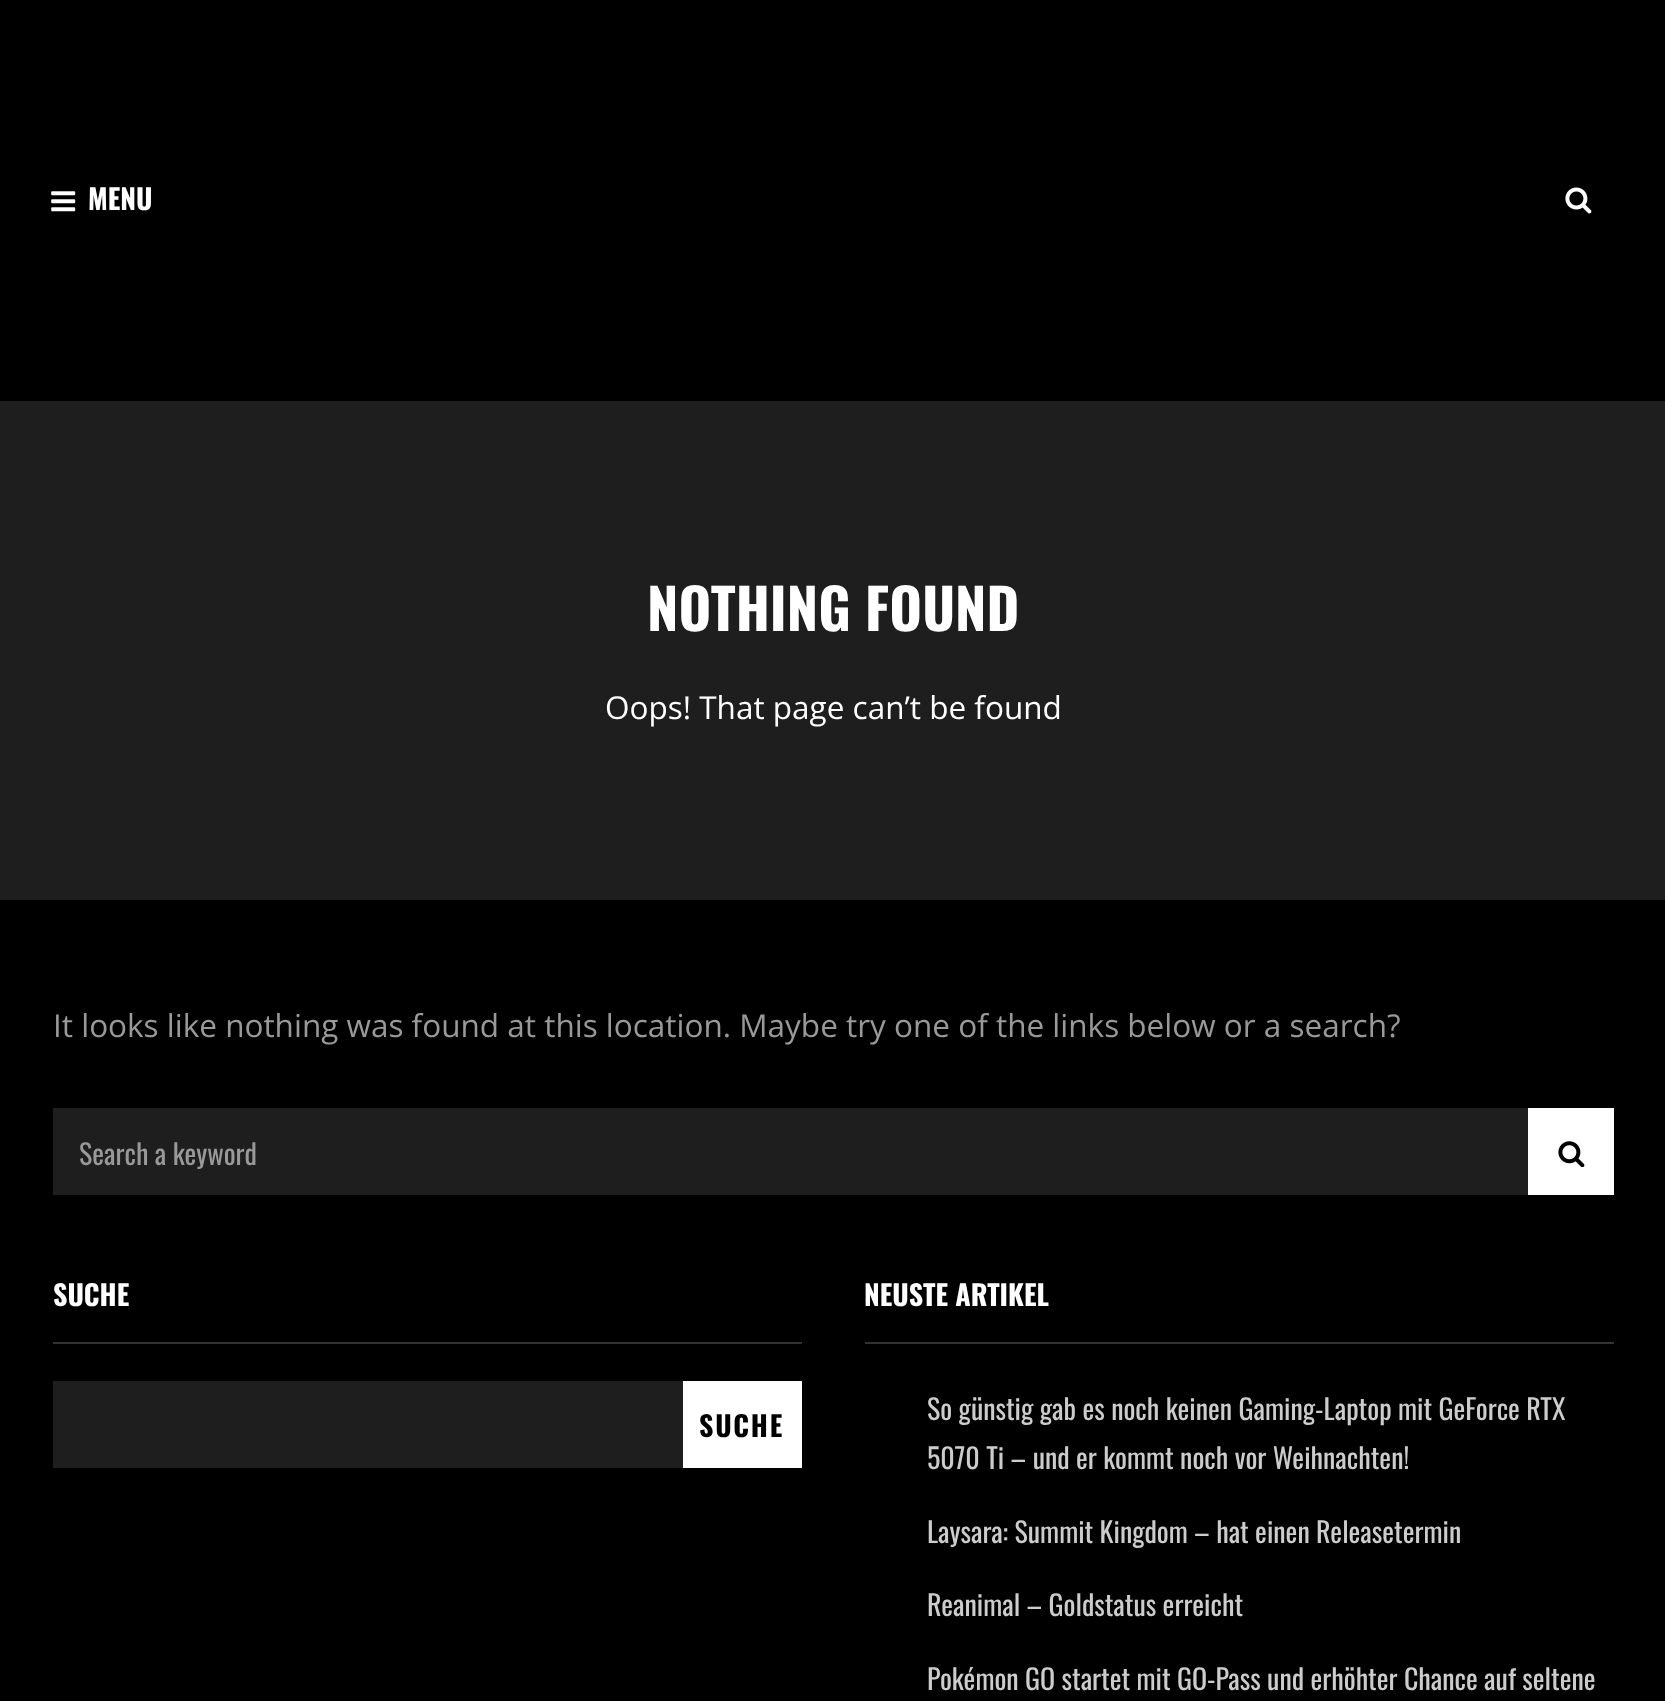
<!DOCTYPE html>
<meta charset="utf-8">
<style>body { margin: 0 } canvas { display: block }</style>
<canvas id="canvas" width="1665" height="1701"></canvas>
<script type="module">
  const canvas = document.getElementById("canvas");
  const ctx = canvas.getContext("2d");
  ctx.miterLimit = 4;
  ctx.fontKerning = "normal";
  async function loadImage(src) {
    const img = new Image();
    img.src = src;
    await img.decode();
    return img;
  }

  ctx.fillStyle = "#000000";
  ctx.fillRect(0, 0, 1665, 1701);
  ctx.drawImage(await loadImage("img1.png"), 51, 191, 25, 21);
  ctx.font = "bold 28px Oswald";
  ctx.fillStyle = "#ffffff";
  ctx.fillText("MENU", 88, 210);
  ctx.drawImage(await loadImage("img2.png"), 1565, 187, 27, 27);
  ctx.fillStyle = "#1e1e1e";
  ctx.fillRect(0, 401, 1665, 499);
  ctx.font = "bold 56px Oswald";
  ctx.fillStyle = "#ffffff";
  ctx.fillText("NOTHING FOUND", 647, 631);
  ctx.font = "31.5px Open Sans";
  ctx.fillText("Oops! That page can’t be found", 605, 719);
  ctx.fillStyle = "#999999";
  ctx.fillText("It looks like nothing was found at this location. Maybe try one of the links below or a search?", 53, 1037);
  ctx.fillStyle = "#1e1e1e";
  ctx.fillRect(53, 1108, 1475, 87);
  ctx.font = "28px Oswald";
  ctx.fillStyle = "#999999";
  ctx.fillText("Search a keyword", 79, 1165);
  ctx.fillStyle = "#ffffff";
  ctx.fillRect(1528, 1108, 86, 87);
  ctx.drawImage(await loadImage("img3.png"), 1558, 1141, 27, 26);
  ctx.fillStyle = "#323232";
  ctx.fillRect(53, 1342, 749, 2);
  ctx.font = "bold 28px Oswald";
  ctx.fillStyle = "#ffffff";
  ctx.fillText("SUCHE", 53, 1306);
  ctx.fillStyle = "#1e1e1e";
  ctx.fillRect(53, 1381, 630, 87);
  ctx.fillStyle = "#ffffff";
  ctx.fillRect(683, 1381, 119, 87);
  ctx.letterSpacing = "1.75px";
  ctx.fillStyle = "#000000";
  ctx.fillText("SUCHE", 699, 1437);
  ctx.fillStyle = "#323232";
  ctx.fillRect(865, 1342, 749, 2);
  ctx.letterSpacing = "0px";
  ctx.fillStyle = "#ffffff";
  ctx.fillText("NEUSTE ARTIKEL", 864, 1306);
  ctx.font = "28px Oswald";
  ctx.fillStyle = "#cccccc";
  ctx.fillText("So günstig gab es noch keinen Gaming-Laptop mit GeForce RTX", 927, 1420);
  ctx.fillText("5070 Ti – und er kommt noch vor Weihnachten!", 927, 1469);
  ctx.fillText("Laysara: Summit Kingdom – hat einen Releasetermin", 927, 1543);
  ctx.fillText("Reanimal – Goldstatus erreicht", 927, 1616);
  ctx.fillText("Pokémon GO startet mit GO-Pass und erhöhter Chance auf seltene", 927, 1690);
</script>
